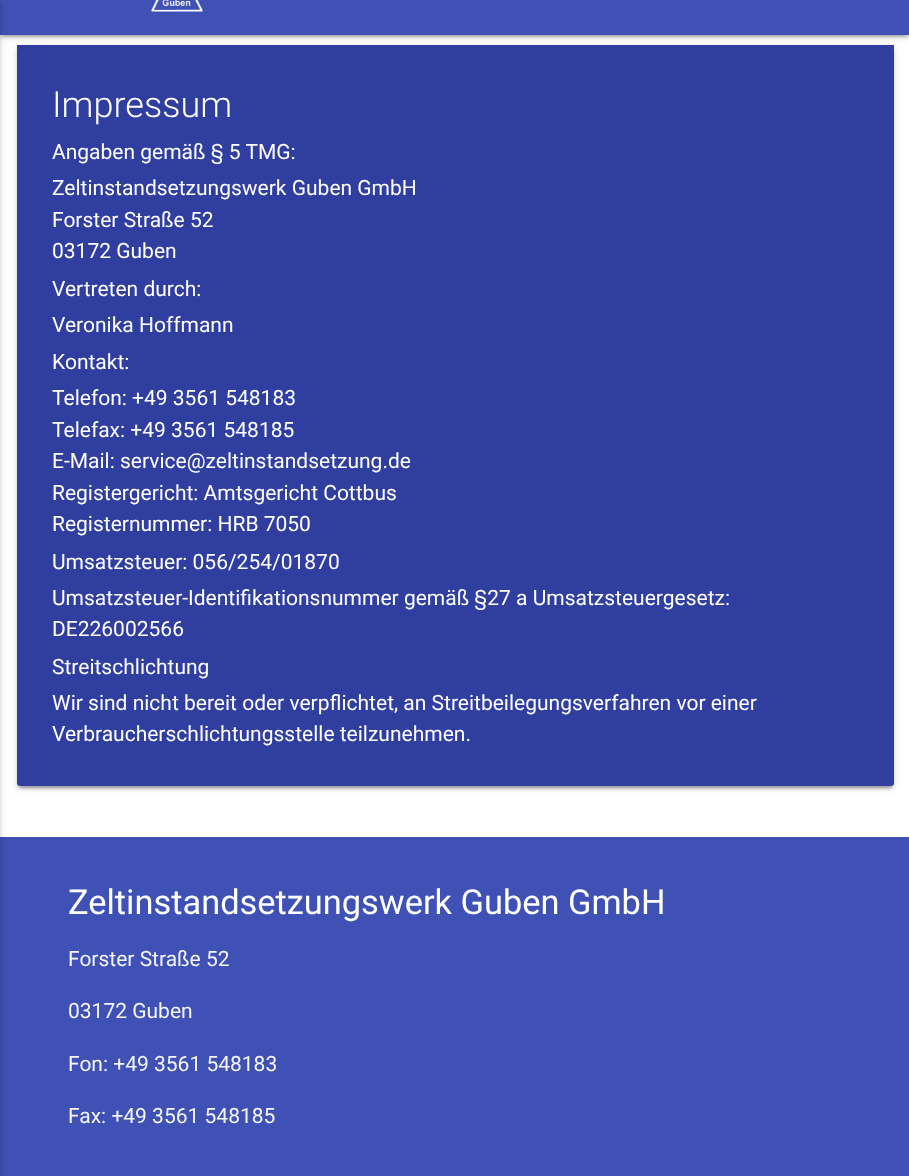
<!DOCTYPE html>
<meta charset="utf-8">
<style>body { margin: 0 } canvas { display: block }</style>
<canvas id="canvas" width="909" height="1176"></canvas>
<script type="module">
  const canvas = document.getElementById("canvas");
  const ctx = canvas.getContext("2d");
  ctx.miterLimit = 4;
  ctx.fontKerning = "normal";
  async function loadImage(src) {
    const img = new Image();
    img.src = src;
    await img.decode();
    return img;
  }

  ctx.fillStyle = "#ffffff";
  ctx.fillRect(0, 0, 909, 1176);
  ctx.fillStyle = "rgba(0, 0, 0, 0.2)";
  ctx.filter = "blur(1px)";
  ctx.beginPath();
  ctx.rect(3, -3, 903, 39);
  ctx.fill();
  ctx.filter = "none";
  ctx.fillStyle = "rgba(0, 0, 0, 0.12)";
  ctx.filter = "blur(4px)";
  ctx.beginPath();
  ctx.rect(0, -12, 909, 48);
  ctx.fill();
  ctx.filter = "none";
  ctx.fillStyle = "rgba(0, 0, 0, 0.14)";
  ctx.filter = "blur(1.5px)";
  ctx.beginPath();
  ctx.rect(0, -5, 909, 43);
  ctx.fill();
  ctx.filter = "none";
  ctx.fillStyle = "#3f51b5";
  ctx.fillRect(0, 0, 909, 35);
  ctx.fillRect(0, 837, 909, 339);
  ctx.fillStyle = "rgba(0, 0, 0, 0.12)";
  ctx.filter = "blur(4px)";
  ctx.beginPath();
  ctx.rect(-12, 2, 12, 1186);
  ctx.fill();
  ctx.filter = "none";
  ctx.fillStyle = "rgba(0, 0, 0, 0.14)";
  ctx.filter = "blur(1.5px)";
  ctx.beginPath();
  ctx.rect(-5, 3, 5, 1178);
  ctx.fill();
  ctx.filter = "none";
  ctx.drawImage(await loadImage("img1.png"), 151, 0, 52, 12);
  ctx.fillStyle = "rgba(0, 0, 0, 0.2)";
  ctx.filter = "blur(1px)";
  ctx.beginPath();
  ctx.rect(20, 53, 871, 735);
  ctx.fill();
  ctx.filter = "none";
  ctx.fillStyle = "rgba(0, 0, 0, 0.12)";
  ctx.filter = "blur(4px)";
  ctx.beginPath();
  ctx.roundRect(17, 47, 877, 741, 3);
  ctx.fill();
  ctx.filter = "none";
  ctx.fillStyle = "rgba(0, 0, 0, 0.14)";
  ctx.filter = "blur(1.5px)";
  ctx.beginPath();
  ctx.roundRect(17, 48, 877, 741, 3);
  ctx.fill();
  ctx.filter = "none";
  ctx.fillStyle = "#303f9f";
  ctx.beginPath();
  ctx.roundRect(17, 45, 877, 741, [0, 0, 3, 3]);
  ctx.fill();
  ctx.font = "300 36px Roboto";
  ctx.fillStyle = "#ffffff";
  ctx.fillText("Impressum", 52, 117);
  ctx.font = "21px Roboto";
  ctx.fillText("Angaben gemäß § 5 TMG:", 52, 159);
  ctx.fillText("Zeltinstandsetzungswerk Guben GmbH", 52, 195);
  ctx.fillText("Forster Straße 52", 52, 227);
  ctx.fillText("03172 Guben", 52, 258);
  ctx.fillText("Vertreten durch:", 52, 296);
  ctx.fillText("Veronika Hoffmann", 52, 332);
  ctx.fillText("Kontakt:", 52, 369);
  ctx.fillText("Telefon: +49 3561 548183", 52, 405);
  ctx.fillText("Telefax: +49 3561 548185", 52, 437);
  ctx.fillText("E-Mail: service@zeltinstandsetzung.de", 52, 468);
  ctx.fillText("Registergericht: Amtsgericht Cottbus", 52, 500);
  ctx.fillText("Registernummer: HRB 7050", 52, 531);
  ctx.fillText("Umsatzsteuer: 056/254/01870", 52, 569);
  ctx.fillText("Umsatzsteuer-Identifikationsnummer gemäß §27 a Umsatzsteuergesetz:", 52, 605);
  ctx.fillText("DE226002566", 52, 636);
  ctx.fillText("Streitschlichtung", 52, 674);
  ctx.fillText("Wir sind nicht bereit oder verpflichtet, an Streitbeilegungsverfahren vor einer", 52, 710);
  ctx.fillText("Verbraucherschlichtungsstelle teilzunehmen.", 52, 741);
  ctx.font = "34.4px Roboto";
  ctx.fillText("Zeltinstandsetzungswerk Guben GmbH", 68, 914);
  ctx.font = "21px Roboto";
  ctx.fillStyle = "#f5f5f5";
  ctx.fillText("Forster Straße 52", 68, 966);
  ctx.fillText("03172 Guben", 68, 1018);
  ctx.fillText("Fon: +49 3561 548183", 68, 1071);
  ctx.fillText("Fax: +49 3561 548185", 68, 1123);
</script>
